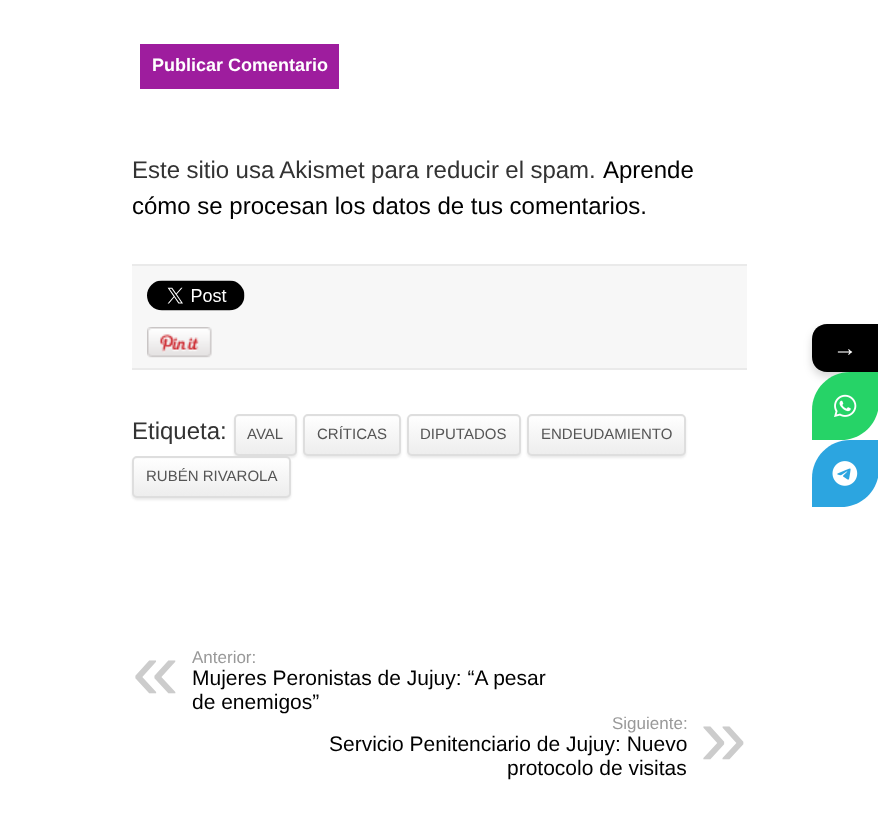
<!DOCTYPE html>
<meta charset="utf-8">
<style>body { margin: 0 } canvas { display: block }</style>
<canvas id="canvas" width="878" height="831"></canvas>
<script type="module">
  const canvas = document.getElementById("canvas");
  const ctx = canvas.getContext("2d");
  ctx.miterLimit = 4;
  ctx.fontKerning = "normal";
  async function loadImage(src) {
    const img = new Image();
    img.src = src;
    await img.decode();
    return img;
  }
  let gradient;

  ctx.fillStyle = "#ffffff";
  ctx.fillRect(0, 0, 878, 831);
  ctx.fillStyle = "#9e1d9e";
  ctx.fillRect(140, 44, 199, 45);
  ctx.font = "bold 18px Liberation Sans";
  ctx.fillStyle = "#ffffff";
  ctx.fillText("Publicar Comentario", 152, 71);
  ctx.wordSpacing = "-0.25px";
  ctx.font = "24px Liberation Sans";
  ctx.fillStyle = "#333333";
  ctx.fillText("Este sitio usa Akismet para reducir el spam.", 132, 178);
  ctx.wordSpacing = "0px";
  ctx.fillStyle = "#000000";
  ctx.fillText("Aprende", 603, 178);
  ctx.fillText("cómo se procesan los datos de tus comentarios.", 132, 214);
  ctx.fillStyle = "#f7f7f7";
  ctx.fillRect(132, 266, 615, 102);
  ctx.fillStyle = "#eaeaea";
  ctx.fillRect(132, 264, 615, 2);
  ctx.fillRect(132, 368, 615, 2);
  ctx.drawImage(await loadImage("img1.png"), 147, 280, 98, 31);
  ctx.drawImage(await loadImage("img2.png"), 147, 327, 65, 31);
  ctx.fillStyle = "#333333";
  ctx.fillText("Etiqueta:", 132, 439);
  ctx.fillStyle = "#eaeaea";
  ctx.filter = "blur(1px)";
  ctx.beginPath();
  ctx.roundRect(234, 416, 63, 42, 5);
  ctx.fill();
  ctx.filter = "none";
  ctx.save();
  ctx.beginPath();
  ctx.roundRect(234, 414, 63, 42, 5);
  ctx.clip();
  gradient = ctx.createLinearGradient(266, 416, 266, 455);
  gradient.addColorStop(0, "#ffffff");
  gradient.addColorStop(0.47, "#f6f6f6");
  gradient.addColorStop(1, "#ededed");
  ctx.fillStyle = gradient;
  ctx.fillRect(234, 416, 63, 39);
  ctx.restore();
  ctx.fillStyle = "#fbfbfb";
  ctx.beginPath();
  ctx.moveTo(238, 417);
  ctx.lineTo(292, 417);
  ctx.bezierCurveTo(294, 417, 296, 418, 296, 420);
  ctx.bezierCurveTo(296, 414, 288, 416, 284, 416);
  ctx.lineTo(248, 416);
  ctx.bezierCurveTo(244, 416, 236, 414, 236, 420);
  ctx.bezierCurveTo(236, 418, 237, 417, 238, 417);
  ctx.closePath();
  ctx.fill();
  ctx.beginPath();
  ctx.roundRect(235, 415, 61, 40, 4);
  ctx.strokeStyle = "#dedede";
  ctx.lineWidth = 2;
  ctx.stroke();
  ctx.font = "15px Liberation Sans";
  ctx.fillStyle = "#555555";
  ctx.fillText("AVAL", 247, 439);
  ctx.fillStyle = "#eaeaea";
  ctx.filter = "blur(1px)";
  ctx.beginPath();
  ctx.roundRect(303, 416, 98, 42, 5);
  ctx.fill();
  ctx.filter = "none";
  ctx.save();
  ctx.beginPath();
  ctx.roundRect(303, 414, 98, 42, 5);
  ctx.clip();
  gradient = ctx.createLinearGradient(352, 416, 352, 455);
  gradient.addColorStop(0, "#ffffff");
  gradient.addColorStop(0.47, "#f6f6f6");
  gradient.addColorStop(1, "#ededed");
  ctx.fillStyle = gradient;
  ctx.fillRect(303, 416, 98, 39);
  ctx.restore();
  ctx.fillStyle = "#fbfbfb";
  ctx.beginPath();
  ctx.moveTo(308, 417);
  ctx.lineTo(396, 417);
  ctx.bezierCurveTo(398, 417, 399, 418, 399, 420);
  ctx.bezierCurveTo(399, 412, 385, 416, 381, 416);
  ctx.lineTo(307, 416);
  ctx.lineTo(305, 418);
  ctx.closePath();
  ctx.fill();
  ctx.beginPath();
  ctx.roundRect(304, 415, 96, 40, 4);
  ctx.stroke();
  ctx.fillStyle = "#555555";
  ctx.fillText("CRÍTICAS", 317, 439);
  ctx.fillStyle = "#eaeaea";
  ctx.filter = "blur(1px)";
  ctx.beginPath();
  ctx.roundRect(407, 416, 114, 42, 5);
  ctx.fill();
  ctx.filter = "none";
  ctx.save();
  ctx.beginPath();
  ctx.roundRect(407, 414, 114, 42, 5);
  ctx.clip();
  gradient = ctx.createLinearGradient(464, 416, 464, 455);
  gradient.addColorStop(0, "#ffffff");
  gradient.addColorStop(0.47, "#f6f6f6");
  gradient.addColorStop(1, "#ededed");
  ctx.fillStyle = gradient;
  ctx.fillRect(407, 416, 114, 39);
  ctx.restore();
  ctx.fillStyle = "#fbfbfb";
  ctx.beginPath();
  ctx.moveTo(411, 417);
  ctx.lineTo(516, 417);
  ctx.bezierCurveTo(518, 417, 519, 418, 519, 420);
  ctx.bezierCurveTo(519, 411, 501, 416, 498, 416);
  ctx.lineTo(428, 416);
  ctx.bezierCurveTo(426, 416, 408, 411, 408, 420);
  ctx.bezierCurveTo(408, 418, 409, 417, 411, 417);
  ctx.closePath();
  ctx.fill();
  ctx.beginPath();
  ctx.roundRect(408, 415, 112, 40, 4);
  ctx.stroke();
  ctx.fillStyle = "#555555";
  ctx.fillText("DIPUTADOS", 420, 439);
  ctx.fillStyle = "#eaeaea";
  ctx.filter = "blur(1px)";
  ctx.beginPath();
  ctx.roundRect(527, 416, 159, 42, 5);
  ctx.fill();
  ctx.filter = "none";
  ctx.save();
  ctx.beginPath();
  ctx.roundRect(527, 414, 159, 42, 5);
  ctx.clip();
  gradient = ctx.createLinearGradient(606, 416, 606, 455);
  gradient.addColorStop(0, "#ffffff");
  gradient.addColorStop(0.47, "#f6f6f6");
  gradient.addColorStop(1, "#ededed");
  ctx.fillStyle = gradient;
  ctx.fillRect(527, 416, 159, 39);
  ctx.restore();
  ctx.fillStyle = "#fbfbfb";
  ctx.beginPath();
  ctx.moveTo(531, 417);
  ctx.lineTo(681, 417);
  ctx.bezierCurveTo(683, 417, 684, 418, 684, 420);
  ctx.bezierCurveTo(684, 418, 683, 416, 681, 416);
  ctx.lineTo(530, 416);
  ctx.bezierCurveTo(528, 416, 528, 418, 528, 420);
  ctx.bezierCurveTo(528, 418, 529, 417, 531, 417);
  ctx.closePath();
  ctx.fill();
  ctx.beginPath();
  ctx.roundRect(528, 415, 157, 40, 4);
  ctx.stroke();
  ctx.fillStyle = "#555555";
  ctx.fillText("ENDEUDAMIENTO", 541, 439);
  ctx.fillStyle = "#eaeaea";
  ctx.filter = "blur(1px)";
  ctx.beginPath();
  ctx.roundRect(132, 458, 159, 42, 5);
  ctx.fill();
  ctx.filter = "none";
  ctx.save();
  ctx.beginPath();
  ctx.roundRect(132, 456, 159, 42, 5);
  ctx.clip();
  gradient = ctx.createLinearGradient(212, 458, 212, 497);
  gradient.addColorStop(0, "#ffffff");
  gradient.addColorStop(0.47, "#f6f6f6");
  gradient.addColorStop(1, "#ededed");
  ctx.fillStyle = gradient;
  ctx.fillRect(132, 458, 159, 39);
  ctx.restore();
  ctx.fillStyle = "#fbfbfb";
  ctx.beginPath();
  ctx.moveTo(136, 459);
  ctx.lineTo(286, 459);
  ctx.bezierCurveTo(288, 459, 290, 460, 290, 462);
  ctx.bezierCurveTo(290, 460, 289, 458, 287, 458);
  ctx.lineTo(136, 458);
  ctx.bezierCurveTo(134, 458, 134, 460, 134, 462);
  ctx.bezierCurveTo(134, 460, 135, 459, 136, 459);
  ctx.closePath();
  ctx.fill();
  ctx.beginPath();
  ctx.roundRect(133, 457, 157, 40, 4);
  ctx.stroke();
  ctx.fillStyle = "#555555";
  ctx.fillText("RUBÉN RIVAROLA", 146, 481);
  ctx.font = "17px Liberation Sans";
  ctx.fillStyle = "#999999";
  ctx.fillText("Anterior:", 192, 663);
  ctx.font = "84px Liberation Sans";
  ctx.fillStyle = "#cccccc";
  ctx.fillText("«", 132, 699);
  ctx.font = "21px Liberation Sans";
  ctx.fillStyle = "#000000";
  ctx.fillText("Mujeres Peronistas de Jujuy: “A pesar", 192, 685);
  ctx.fillText("de enemigos”", 192, 709);
  ctx.font = "17px Liberation Sans";
  ctx.fillStyle = "#999999";
  ctx.fillText("Siguiente:", 612, 729);
  ctx.font = "84px Liberation Sans";
  ctx.fillStyle = "#cccccc";
  ctx.fillText("»", 700, 765);
  ctx.font = "21px Liberation Sans";
  ctx.fillStyle = "#000000";
  ctx.fillText("Servicio Penitenciario de Jujuy: Nuevo", 329, 751);
  ctx.fillText("protocolo de visitas", 507, 775);
  ctx.fillStyle = "rgba(0, 0, 0, 0.16)";
  ctx.filter = "blur(4.5px)";
  ctx.beginPath();
  ctx.roundRect(812, 329, 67, 48, 15);
  ctx.fill();
  ctx.filter = "none";
  ctx.fillStyle = "#000000";
  ctx.beginPath();
  ctx.moveTo(827, 324);
  ctx.lineTo(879, 324);
  ctx.lineTo(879, 372);
  ctx.lineTo(827, 372);
  ctx.bezierCurveTo(818.5, 372, 812, 365.5, 812, 357);
  ctx.lineTo(812, 339);
  ctx.bezierCurveTo(812, 330.5, 818.5, 324, 827, 324);
  ctx.closePath();
  ctx.fill();
  ctx.font = "24px Liberation Serif";
  ctx.fillStyle = "#ffffff";
  ctx.fillText("→", 833, 356);
  ctx.fillStyle = "#26d367";
  ctx.beginPath();
  ctx.moveTo(850, 372);
  ctx.lineTo(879, 372);
  ctx.lineTo(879, 402);
  ctx.bezierCurveTo(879, 423, 862, 440, 841, 440);
  ctx.lineTo(812, 440);
  ctx.lineTo(812, 410);
  ctx.bezierCurveTo(812, 389, 829, 372, 850, 372);
  ctx.closePath();
  ctx.fill();
  ctx.drawImage(await loadImage("img3.png"), 834, 394, 23, 23);
  ctx.fillStyle = "#2ca5e0";
  ctx.beginPath();
  ctx.moveTo(850, 440);
  ctx.lineTo(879, 440);
  ctx.lineTo(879, 469);
  ctx.bezierCurveTo(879, 490, 862, 507, 841, 507);
  ctx.lineTo(812, 507);
  ctx.lineTo(812, 478);
  ctx.bezierCurveTo(812, 457, 829, 440, 850, 440);
  ctx.closePath();
  ctx.fill();
  ctx.drawImage(await loadImage("img4.png"), 832, 461, 26, 25);
</script>
